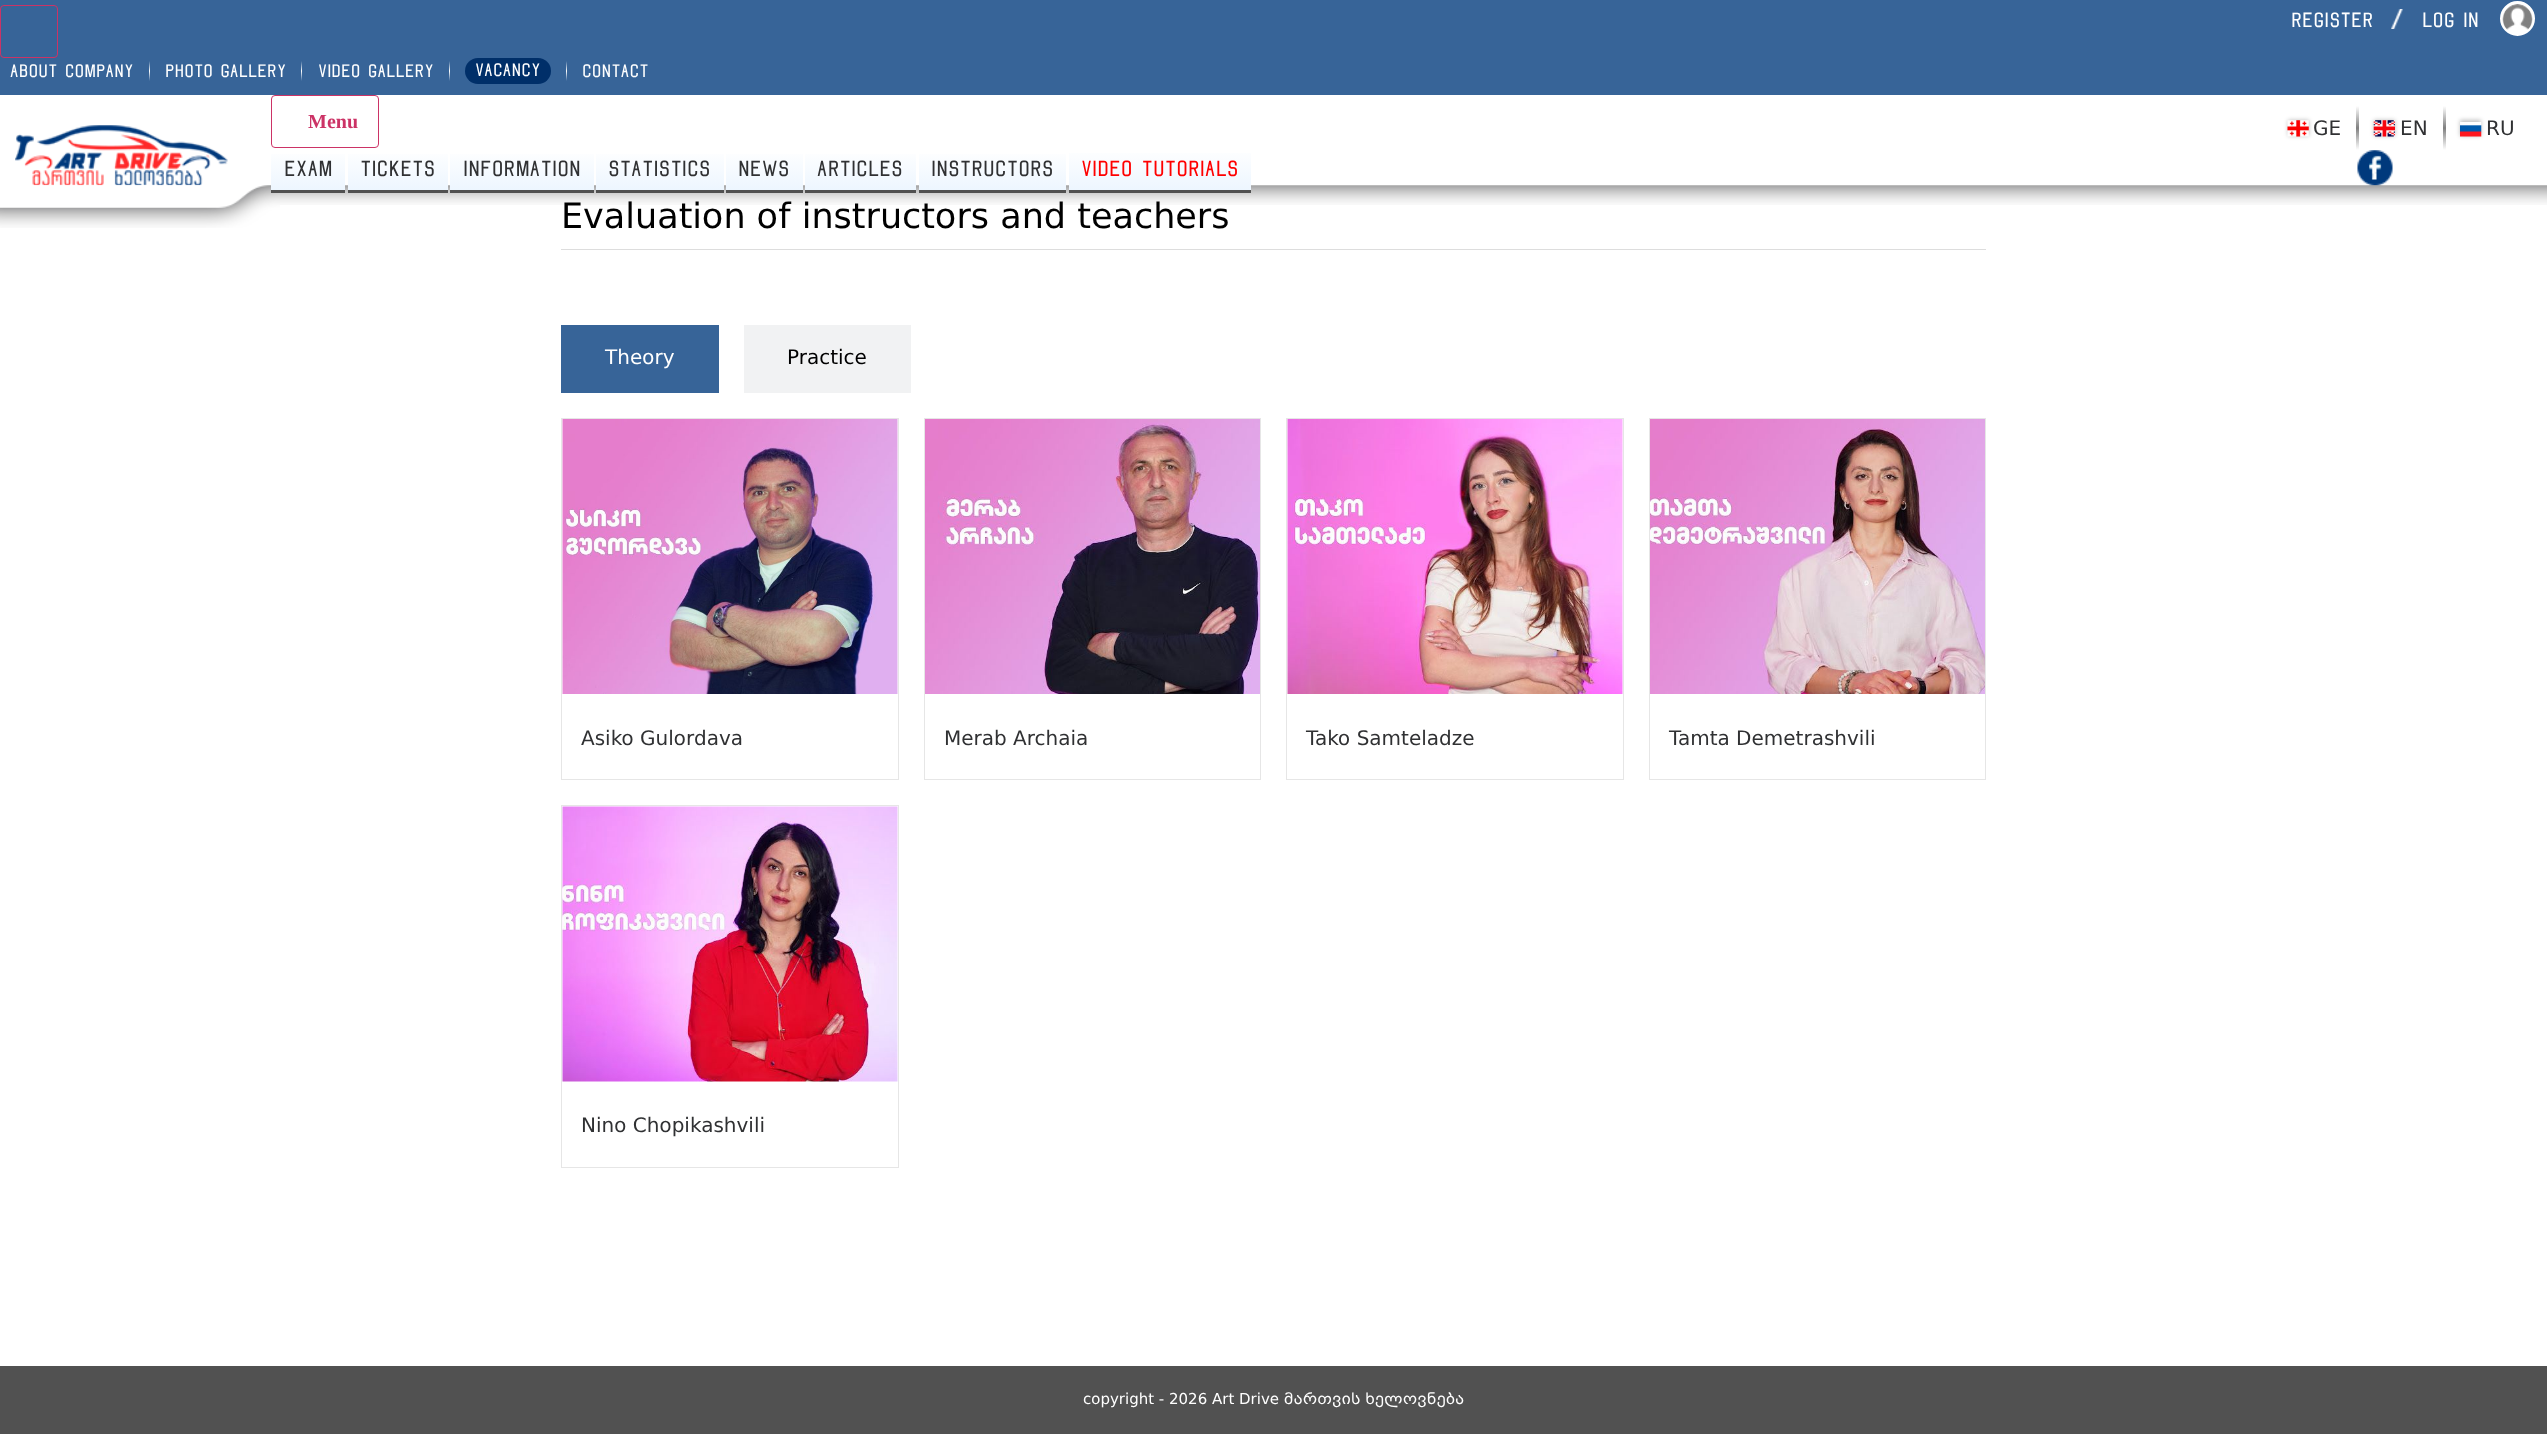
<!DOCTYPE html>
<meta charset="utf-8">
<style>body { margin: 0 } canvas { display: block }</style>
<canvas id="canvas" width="2547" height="1439"></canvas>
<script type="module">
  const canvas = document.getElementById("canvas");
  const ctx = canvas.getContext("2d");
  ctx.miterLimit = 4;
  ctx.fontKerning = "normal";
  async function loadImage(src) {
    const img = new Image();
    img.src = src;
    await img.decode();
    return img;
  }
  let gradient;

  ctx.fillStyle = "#ffffff";
  ctx.fillRect(0, 0, 2547, 1439);
  ctx.fillStyle = "#376498";
  ctx.fillRect(0, 0, 2547, 95);
  ctx.font = "20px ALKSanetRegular";
  ctx.fillStyle = "#ffffff";
  ctx.fillText("Register", 2291, 27);
  ctx.drawImage(await loadImage("img1.png"), 2391, 9, 12, 20);
  ctx.fillText("Log In", 2422, 27);
  ctx.beginPath();
  ctx.arc(2517.5, 18.5, 16, 0, Math.PI * 2);
  ctx.fill();
  ctx.strokeStyle = "#ffffff";
  ctx.lineWidth = 3;
  ctx.stroke();
  ctx.drawImage(await loadImage("img2.png"), 2502, 4, 31, 26);
  ctx.beginPath();
  ctx.roundRect(0.5, 5.5, 57, 52, 3.5);
  ctx.strokeStyle = "#cc3366";
  ctx.lineWidth = 1;
  ctx.stroke();
  ctx.font = "17.5px ALKSanetRegular";
  ctx.fillText("About company", 10, 77);
  gradient = ctx.createLinearGradient(149, 61, 149, 81);
  gradient.addColorStop(0, "#376498");
  gradient.addColorStop(0.5, "#ffffff");
  gradient.addColorStop(1, "#376498");
  ctx.fillStyle = gradient;
  ctx.fillRect(149, 61, 1, 20);
  ctx.fillStyle = "#ffffff";
  ctx.fillText("Photo gallery", 165, 77);
  gradient = ctx.createLinearGradient(302, 61, 302, 81);
  gradient.addColorStop(0, "#376498");
  gradient.addColorStop(0.5, "#ffffff");
  gradient.addColorStop(1, "#376498");
  ctx.fillStyle = gradient;
  ctx.fillRect(301, 61, 1, 20);
  ctx.fillStyle = "#ffffff";
  ctx.fillText("Video gallery", 318, 77);
  gradient = ctx.createLinearGradient(449, 61, 449, 81);
  gradient.addColorStop(0, "#376498");
  gradient.addColorStop(0.5, "#ffffff");
  gradient.addColorStop(1, "#376498");
  ctx.fillStyle = gradient;
  ctx.fillRect(449, 61, 1, 20);
  ctx.fillStyle = "#002f69";
  ctx.beginPath();
  ctx.roundRect(465, 58, 86, 26, 13);
  ctx.fill();
  ctx.fillStyle = "#ffffff";
  ctx.fillText("Vacancy", 475, 76);
  gradient = ctx.createLinearGradient(567, 61, 567, 81);
  gradient.addColorStop(0, "#376498");
  gradient.addColorStop(0.5, "#ffffff");
  gradient.addColorStop(1, "#376498");
  ctx.fillStyle = gradient;
  ctx.fillRect(566, 61, 1, 20);
  ctx.fillStyle = "#ffffff";
  ctx.fillText("Contact", 582, 77);
  ctx.drawImage(await loadImage("img3.png"), 15, 125, 213, 61);
  ctx.beginPath();
  ctx.roundRect(271.5, 95.5, 107, 52, 3.5);
  ctx.stroke();
  ctx.font = "bold 20px Liberation Serif";
  ctx.fillStyle = "#cc3366";
  ctx.fillText("Menu", 308, 128);
  ctx.drawImage(await loadImage("img8.png"), 0, 185, 280, 43);
  ctx.drawImage(await loadImage("img7.png"), 2357, 150, 36, 36);
  ctx.font = "35px 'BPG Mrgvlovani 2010'";
  ctx.fillStyle = "#000000";
  ctx.fillText("Evaluation of instructors and teachers", 561, 228);
  ctx.drawImage(await loadImage("img9.png"), 280, 185, 2267, 20);
  gradient = ctx.createLinearGradient(308, 148, 308, 190);
  gradient.addColorStop(0, "#ffffff");
  gradient.addColorStop(1, "#edf6ff");
  ctx.fillStyle = gradient;
  ctx.fillRect(271, 154, 74, 36);
  ctx.fillStyle = "#515151";
  ctx.fillRect(271, 190, 74, 3);
  ctx.font = "21.25px ALKSanetRegular";
  ctx.fillStyle = "#303133";
  ctx.fillText("Exam", 284, 176);
  gradient = ctx.createLinearGradient(398, 148, 398, 190);
  gradient.addColorStop(0, "#ffffff");
  gradient.addColorStop(1, "#edf6ff");
  ctx.fillStyle = gradient;
  ctx.fillRect(348, 154, 100, 36);
  ctx.fillStyle = "#515151";
  ctx.fillRect(348, 190, 100, 3);
  ctx.fillStyle = "#303133";
  ctx.fillText("Tickets", 360, 176);
  gradient = ctx.createLinearGradient(522, 148, 522, 190);
  gradient.addColorStop(0, "#ffffff");
  gradient.addColorStop(1, "#edf6ff");
  ctx.fillStyle = gradient;
  ctx.fillRect(450, 154, 144, 36);
  ctx.fillStyle = "#515151";
  ctx.fillRect(450, 190, 144, 3);
  ctx.fillStyle = "#303133";
  ctx.fillText("Information", 463, 176);
  gradient = ctx.createLinearGradient(660, 148, 660, 190);
  gradient.addColorStop(0, "#ffffff");
  gradient.addColorStop(1, "#edf6ff");
  ctx.fillStyle = gradient;
  ctx.fillRect(596, 154, 128, 36);
  ctx.fillStyle = "#515151";
  ctx.fillRect(596, 190, 128, 3);
  ctx.fillStyle = "#303133";
  ctx.fillText("Statistics", 608, 176);
  gradient = ctx.createLinearGradient(764, 148, 764, 190);
  gradient.addColorStop(0, "#ffffff");
  gradient.addColorStop(1, "#edf6ff");
  ctx.fillStyle = gradient;
  ctx.fillRect(726, 154, 77, 36);
  ctx.fillStyle = "#515151";
  ctx.fillRect(726, 190, 77, 3);
  ctx.fillStyle = "#303133";
  ctx.fillText("News", 738, 176);
  gradient = ctx.createLinearGradient(861, 148, 861, 190);
  gradient.addColorStop(0, "#ffffff");
  gradient.addColorStop(1, "#edf6ff");
  ctx.fillStyle = gradient;
  ctx.fillRect(805, 154, 111, 36);
  ctx.fillStyle = "#515151";
  ctx.fillRect(805, 190, 111, 3);
  ctx.fillStyle = "#303133";
  ctx.fillText("Articles", 817, 176);
  gradient = ctx.createLinearGradient(993, 148, 993, 190);
  gradient.addColorStop(0, "#ffffff");
  gradient.addColorStop(1, "#edf6ff");
  ctx.fillStyle = gradient;
  ctx.fillRect(919, 154, 147, 36);
  ctx.fillStyle = "#515151";
  ctx.fillRect(919, 190, 147, 3);
  ctx.fillStyle = "#303133";
  ctx.fillText("Instructors", 931, 176);
  gradient = ctx.createLinearGradient(1160, 147, 1160, 190);
  gradient.addColorStop(0, "#ffffff");
  gradient.addColorStop(1, "#edf6ff");
  ctx.fillStyle = gradient;
  ctx.fillRect(1069, 153, 182, 37);
  ctx.fillStyle = "#515151";
  ctx.fillRect(1069, 190, 182, 3);
  ctx.fillStyle = "#ff0000";
  ctx.fillText("Video Tutorials", 1081, 176);
  ctx.fillStyle = "rgba(0, 0, 0, 0.25)";
  ctx.filter = "blur(2px)";
  ctx.beginPath();
  ctx.rect(2288, 120, 21, 16);
  ctx.fill();
  ctx.filter = "none";
  ctx.drawImage(await loadImage("img4.png"), 2287, 120, 22, 17);
  ctx.font = "20px 'BPG Mrgvlovani 2010'";
  ctx.fillStyle = "#303133";
  ctx.fillText("GE", 2313, 135);
  gradient = ctx.createLinearGradient(2358, 106, 2358, 150);
  gradient.addColorStop(0, "#ffffff");
  gradient.addColorStop(0.5, "#808080");
  gradient.addColorStop(1, "#ffffff");
  ctx.fillStyle = gradient;
  ctx.fillRect(2356, 106, 3, 44);
  ctx.fillStyle = "rgba(0, 0, 0, 0.25)";
  ctx.filter = "blur(2px)";
  ctx.beginPath();
  ctx.rect(2374, 120, 21, 16);
  ctx.fill();
  ctx.filter = "none";
  ctx.drawImage(await loadImage("img5.png"), 2373, 120, 22, 17);
  ctx.fillStyle = "#303133";
  ctx.fillText("EN", 2400, 135);
  gradient = ctx.createLinearGradient(2444, 106, 2444, 150);
  gradient.addColorStop(0, "#ffffff");
  gradient.addColorStop(0.5, "#808080");
  gradient.addColorStop(1, "#ffffff");
  ctx.fillStyle = gradient;
  ctx.fillRect(2443, 106, 3, 44);
  ctx.fillStyle = "rgba(0, 0, 0, 0.25)";
  ctx.filter = "blur(2px)";
  ctx.beginPath();
  ctx.rect(2460, 120, 21, 16);
  ctx.fill();
  ctx.filter = "none";
  ctx.drawImage(await loadImage("img6.png"), 2460, 122, 22, 15);
  ctx.fillStyle = "#303133";
  ctx.fillText("RU", 2486, 135);
  ctx.fillStyle = "#dddddd";
  ctx.fillRect(561, 249, 1425, 1);
  ctx.fillStyle = "#376498";
  ctx.fillRect(561, 325, 158, 68);
  ctx.fillStyle = "#ffffff";
  ctx.fillText("Theory", 605, 364);
  ctx.fillStyle = "#f1f2f3";
  ctx.fillRect(744, 325, 167, 68);
  ctx.fillStyle = "#000000";
  ctx.fillText("Practice", 787, 364);
  ctx.strokeStyle = "#e6e6e6";
  ctx.strokeRect(561.5, 418.5, 337, 361);
  ctx.drawImage(await loadImage("img10.png"), 562, 419, 336, 275);
  ctx.fillStyle = "#303133";
  ctx.fillText("Asiko Gulordava", 581, 745);
  ctx.strokeRect(924.5, 418.5, 336, 361);
  ctx.drawImage(await loadImage("img11.png"), 925, 419, 335, 275);
  ctx.fillText("Merab Archaia", 944, 745);
  ctx.strokeRect(1286.5, 418.5, 337, 361);
  ctx.drawImage(await loadImage("img12.png"), 1287, 419, 336, 275);
  ctx.fillText("Tako Samteladze", 1306, 745);
  ctx.strokeRect(1649.5, 418.5, 336, 361);
  ctx.drawImage(await loadImage("img13.png"), 1650, 419, 335, 275);
  ctx.fillText("Tamta Demetrashvili", 1669, 745);
  ctx.strokeRect(561.5, 805.5, 337, 362);
  ctx.drawImage(await loadImage("img14.png"), 562, 806, 336, 276);
  ctx.fillText("Nino Chopikashvili", 581, 1132);
  ctx.fillStyle = "#515151";
  ctx.fillRect(0, 1366, 2547, 68);
  ctx.font = "15px 'BPG Mrgvlovani 2010'";
  ctx.fillStyle = "#ffffff";
  ctx.fillText("copyright - 2026 Art Drive მართვის ხელოვნება", 1083, 1404);
</script>
